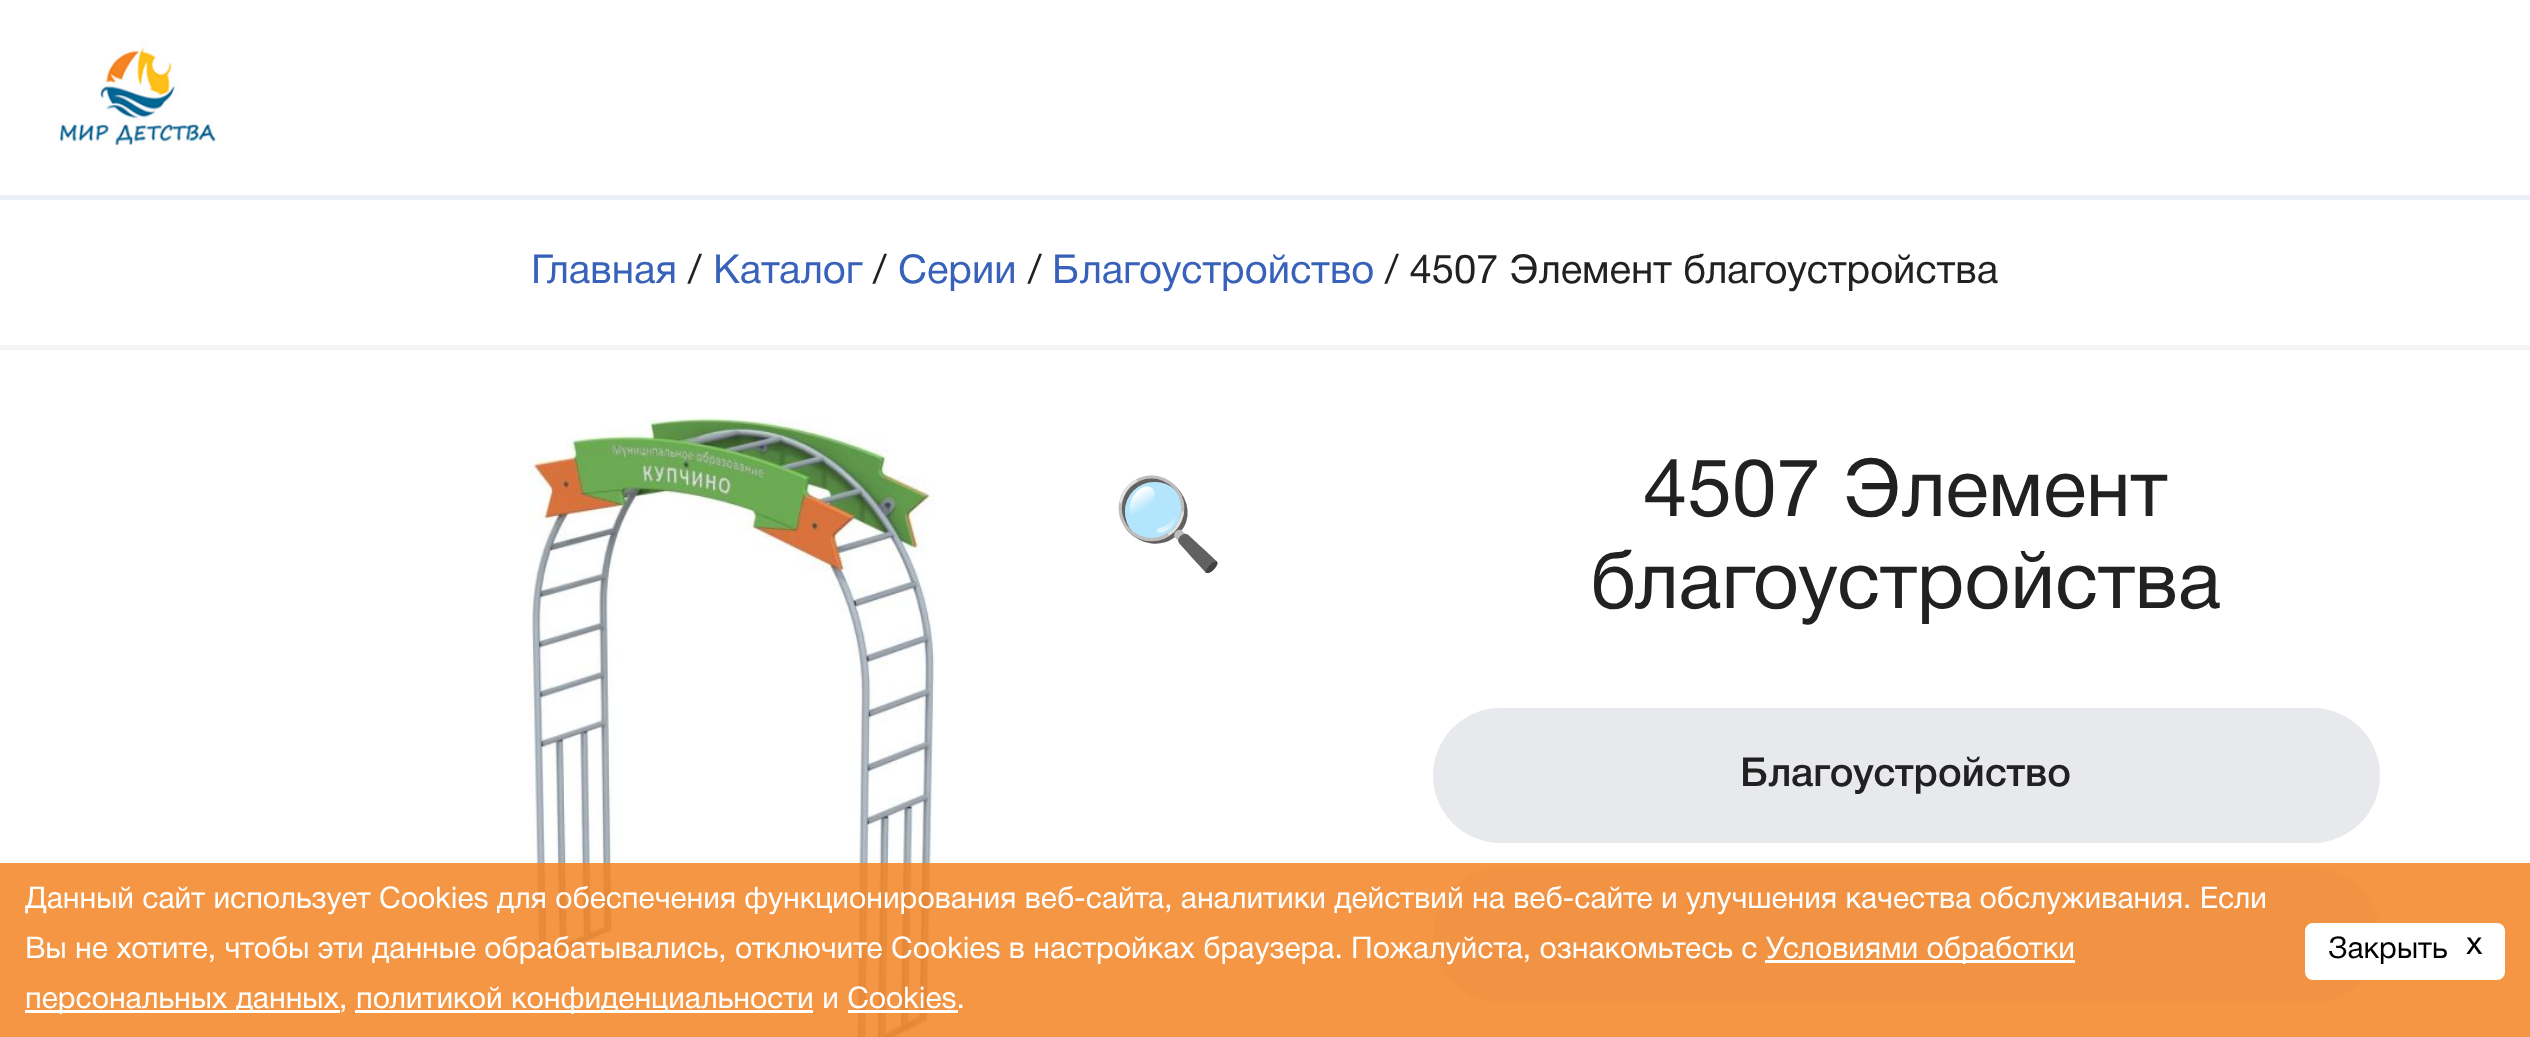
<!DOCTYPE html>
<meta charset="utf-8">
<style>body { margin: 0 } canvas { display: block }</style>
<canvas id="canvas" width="2530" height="1037"></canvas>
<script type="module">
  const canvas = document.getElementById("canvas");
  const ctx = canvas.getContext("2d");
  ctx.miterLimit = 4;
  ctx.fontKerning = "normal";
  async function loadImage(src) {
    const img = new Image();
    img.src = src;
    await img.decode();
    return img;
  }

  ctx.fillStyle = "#ffffff";
  ctx.fillRect(0, 0, 2530, 1037);
  ctx.fillStyle = "#ebf0f8";
  ctx.fillRect(0, 195, 2530, 5);
  ctx.drawImage(await loadImage("img1.png"), 58, 40, 159, 105);
  ctx.fillStyle = "#f4f4f4";
  ctx.fillRect(0, 345, 2530, 5);
  ctx.font = "40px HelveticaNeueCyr";
  ctx.fillStyle = "#3862ba";
  ctx.fillText("Главная", 531, 283);
  ctx.fillStyle = "#212121";
  ctx.fillText("/", 688, 283);
  ctx.fillStyle = "#3862ba";
  ctx.fillText("Каталог", 713, 283);
  ctx.fillStyle = "#212121";
  ctx.fillText("/", 873, 283);
  ctx.fillStyle = "#3862ba";
  ctx.fillText("Серии", 898, 283);
  ctx.fillStyle = "#212121";
  ctx.fillText("/", 1028, 283);
  ctx.fillStyle = "#3862ba";
  ctx.fillText("Благоустройство", 1052, 283);
  ctx.fillStyle = "#212121";
  ctx.fillText("/ 4507 Элемент благоустройства", 1385, 283);
  ctx.drawImage(await loadImage("img2.png"), 528, 418, 407, 619);
  ctx.font = "90px Noto Color Emoji";
  ctx.fillStyle = "#3862ba";
  ctx.fillText("🔍", 1112, 555);
  ctx.font = "80px HelveticaNeueCyr";
  ctx.fillStyle = "#212121";
  ctx.fillText("4507 Элемент", 1643, 516);
  ctx.fillText("благоустройства", 1590, 608);
  ctx.fillStyle = "#e8e9ed";
  ctx.beginPath();
  ctx.roundRect(1433, 708, 947, 135, 67.5);
  ctx.fill();
  ctx.font = "500 40px HelveticaNeueCyr";
  ctx.fillStyle = "#212121";
  ctx.fillText("Благоустройство", 1740, 786);
  ctx.fillStyle = "#e8e9ed";
  ctx.beginPath();
  ctx.roundRect(1433, 868, 947, 135, 67.5);
  ctx.fill();
  ctx.fillStyle = "rgba(242, 132, 35, 0.85)";
  ctx.fillRect(0, 863, 2530, 174);
  ctx.font = "30px HelveticaNeueCyr";
  ctx.fillStyle = "#ffffff";
  ctx.fillText("Данный сайт использует Cookies для обеспечения функционирования веб-сайта, аналитики действий на веб-сайте и улучшения качества обслуживания. Если", 25, 908);
  ctx.fillText("Вы не хотите, чтобы эти данные обрабатывались, отключите Cookies в настройках браузера. Пожалуйста, ознакомьтесь с", 25, 958);
  ctx.fillRect(1765, 960, 310, 3);
  ctx.fillText("Условиями обработки", 1766, 958);
  ctx.fillRect(25, 1010, 315, 3);
  ctx.fillText("персональных данных,", 25, 1008);
  ctx.fillRect(355, 1010, 458, 3);
  ctx.fillText("политикой конфиденциальности и Cookies.", 356, 1008);
  ctx.fillRect(848, 1010, 110, 3);
  ctx.beginPath();
  ctx.roundRect(2306.5, 924.5, 197, 54, 6.5);
  ctx.fill();
  ctx.strokeStyle = "#ffffff";
  ctx.lineWidth = 3;
  ctx.stroke();
  ctx.fillStyle = "#000000";
  ctx.fillText("Закрыть", 2328, 958);
  ctx.font = "32px HelveticaNeueCyr";
  ctx.fillText("х", 2466, 954);
</script>
